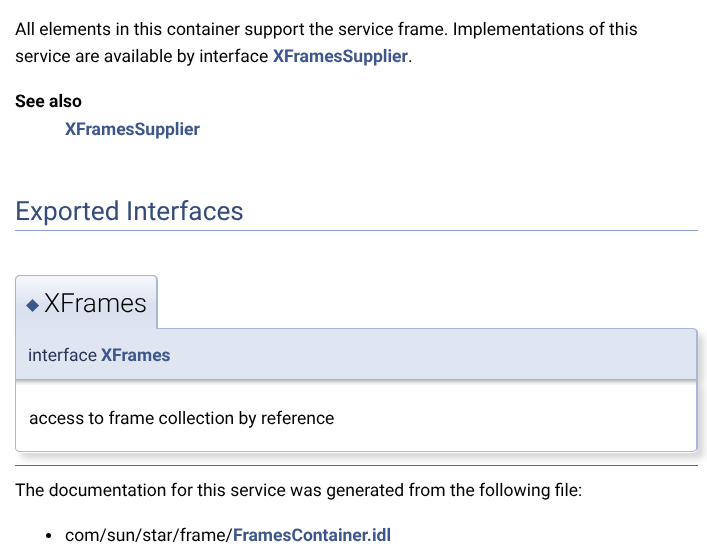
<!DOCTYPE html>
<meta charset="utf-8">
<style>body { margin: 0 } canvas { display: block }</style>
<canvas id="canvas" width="707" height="546"></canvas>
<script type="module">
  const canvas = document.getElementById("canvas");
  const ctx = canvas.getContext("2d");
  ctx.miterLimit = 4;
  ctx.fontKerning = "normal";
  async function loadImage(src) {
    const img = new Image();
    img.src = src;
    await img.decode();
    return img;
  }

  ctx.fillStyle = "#ffffff";
  ctx.fillRect(0, 0, 707, 546);
  ctx.font = "17.5px Roboto";
  ctx.fillStyle = "#000000";
  ctx.fillText("All elements in this container support the service frame. Implementations of this", 15, 35);
  ctx.fillText("service are available by interface", 15, 62);
  ctx.font = "bold 17.5px Roboto";
  ctx.fillStyle = "#3d578c";
  ctx.fillText("XFramesSupplier", 273, 62);
  ctx.font = "17.5px Roboto";
  ctx.fillStyle = "#000000";
  ctx.fillText(".", 408, 62);
  ctx.font = "bold 17.5px Roboto";
  ctx.fillText("See also", 15, 107);
  ctx.fillStyle = "#3d578c";
  ctx.fillText("XFramesSupplier", 65, 135);
  ctx.fillStyle = "#879ecb";
  ctx.fillRect(15, 230, 683, 1);
  ctx.font = "26.25px Roboto";
  ctx.fillStyle = "#354c7b";
  ctx.fillText("Exported Interfaces", 15, 220);
  ctx.fillStyle = "rgba(0, 0, 0, 0.15)";
  ctx.filter = "blur(3px)";
  ctx.beginPath();
  ctx.roundRect(21, 334, 683, 51, 5);
  ctx.fill();
  ctx.filter = "none";
  ctx.fillStyle = "#dfe5f1";
  ctx.beginPath();
  ctx.roundRect(15, 328, 683, 51, [0, 5, 0, 0]);
  ctx.fill();
  ctx.fillStyle = "#a8b8d9";
  ctx.beginPath();
  ctx.moveTo(15, 328);
  ctx.lineTo(692, 328);
  ctx.bezierCurveTo(695, 328, 698, 330, 698, 332);
  ctx.lineTo(698, 379);
  ctx.lineTo(15, 379);
  ctx.closePath();
  ctx.moveTo(16, 329);
  ctx.lineTo(692, 329);
  ctx.bezierCurveTo(695, 329, 696, 330, 696, 332);
  ctx.lineTo(696, 379);
  ctx.lineTo(16, 379);
  ctx.closePath();
  ctx.fill("evenodd");
  ctx.fillStyle = "#e2e8f2";
  ctx.beginPath();
  ctx.roundRect(15, 275, 143, 54, [5, 5, 0, 0]);
  ctx.fill();
  ctx.drawImage(await loadImage("img1.png"), 15, 276, 143, 52);
  ctx.fillStyle = "#a8b8d9";
  ctx.beginPath();
  ctx.moveTo(20, 275);
  ctx.lineTo(152, 275);
  ctx.bezierCurveTo(155, 275, 158, 277, 158, 280);
  ctx.lineTo(158, 329);
  ctx.lineTo(15, 329);
  ctx.lineTo(15, 280);
  ctx.bezierCurveTo(15, 277, 17, 275, 20, 275);
  ctx.closePath();
  ctx.moveTo(20, 276);
  ctx.lineTo(152, 276);
  ctx.bezierCurveTo(155, 276, 156, 278, 156, 280);
  ctx.lineTo(156, 329);
  ctx.lineTo(16, 329);
  ctx.lineTo(16, 280);
  ctx.bezierCurveTo(16, 278, 18, 276, 20, 276);
  ctx.closePath();
  ctx.fill("evenodd");
  ctx.font = "17px DejaVu Sans";
  ctx.fillStyle = "#3d578c";
  ctx.fillText("◆", 26, 310);
  ctx.font = "300 26.25px Roboto";
  ctx.fillStyle = "#000000";
  ctx.fillText("XFrames", 44, 312);
  ctx.font = "17.5px Roboto";
  ctx.fillStyle = "#253555";
  ctx.fillText("interface", 28, 361);
  ctx.font = "bold 17.5px Roboto";
  ctx.fillStyle = "#3d578c";
  ctx.fillText("XFrames", 101, 361);
  ctx.fillStyle = "rgba(0, 0, 0, 0.15)";
  ctx.filter = "blur(3px)";
  ctx.beginPath();
  ctx.roundRect(21, 385, 683, 74, 5);
  ctx.fill();
  ctx.filter = "none";
  ctx.fillStyle = "#ffffff";
  ctx.beginPath();
  ctx.roundRect(15, 379, 683, 74, [0, 0, 5, 5]);
  ctx.fill();
  ctx.drawImage(await loadImage("img2.png"), 16, 379, 680, 6);
  ctx.fillStyle = "#a8b8d9";
  ctx.beginPath();
  ctx.moveTo(15, 379);
  ctx.lineTo(698, 379);
  ctx.lineTo(698, 448);
  ctx.bezierCurveTo(698, 450, 695, 452, 692, 452);
  ctx.lineTo(20, 452);
  ctx.bezierCurveTo(17, 452, 15, 450, 15, 448);
  ctx.closePath();
  ctx.moveTo(16, 379);
  ctx.lineTo(696, 379);
  ctx.lineTo(696, 448);
  ctx.bezierCurveTo(696, 450, 695, 451, 692, 451);
  ctx.lineTo(20, 451);
  ctx.bezierCurveTo(18, 451, 16, 450, 16, 448);
  ctx.closePath();
  ctx.fill("evenodd");
  ctx.font = "17.5px Roboto";
  ctx.fillStyle = "#000000";
  ctx.fillText("access to frame collection by reference", 29, 424);
  ctx.fillStyle = "#4a6aaa";
  ctx.fillRect(15, 465, 683, 1);
  ctx.fillStyle = "#000000";
  ctx.fillText("The documentation for this service was generated from the following file:", 15, 496);
  ctx.beginPath();
  ctx.arc(48.5, 535.5, 2.5, 0, Math.PI * 2);
  ctx.fill();
  ctx.fillText("com/sun/star/frame/", 65, 541);
  ctx.font = "bold 17.5px Roboto";
  ctx.fillStyle = "#3d578c";
  ctx.fillText("FramesContainer.idl", 233, 541);
</script>
